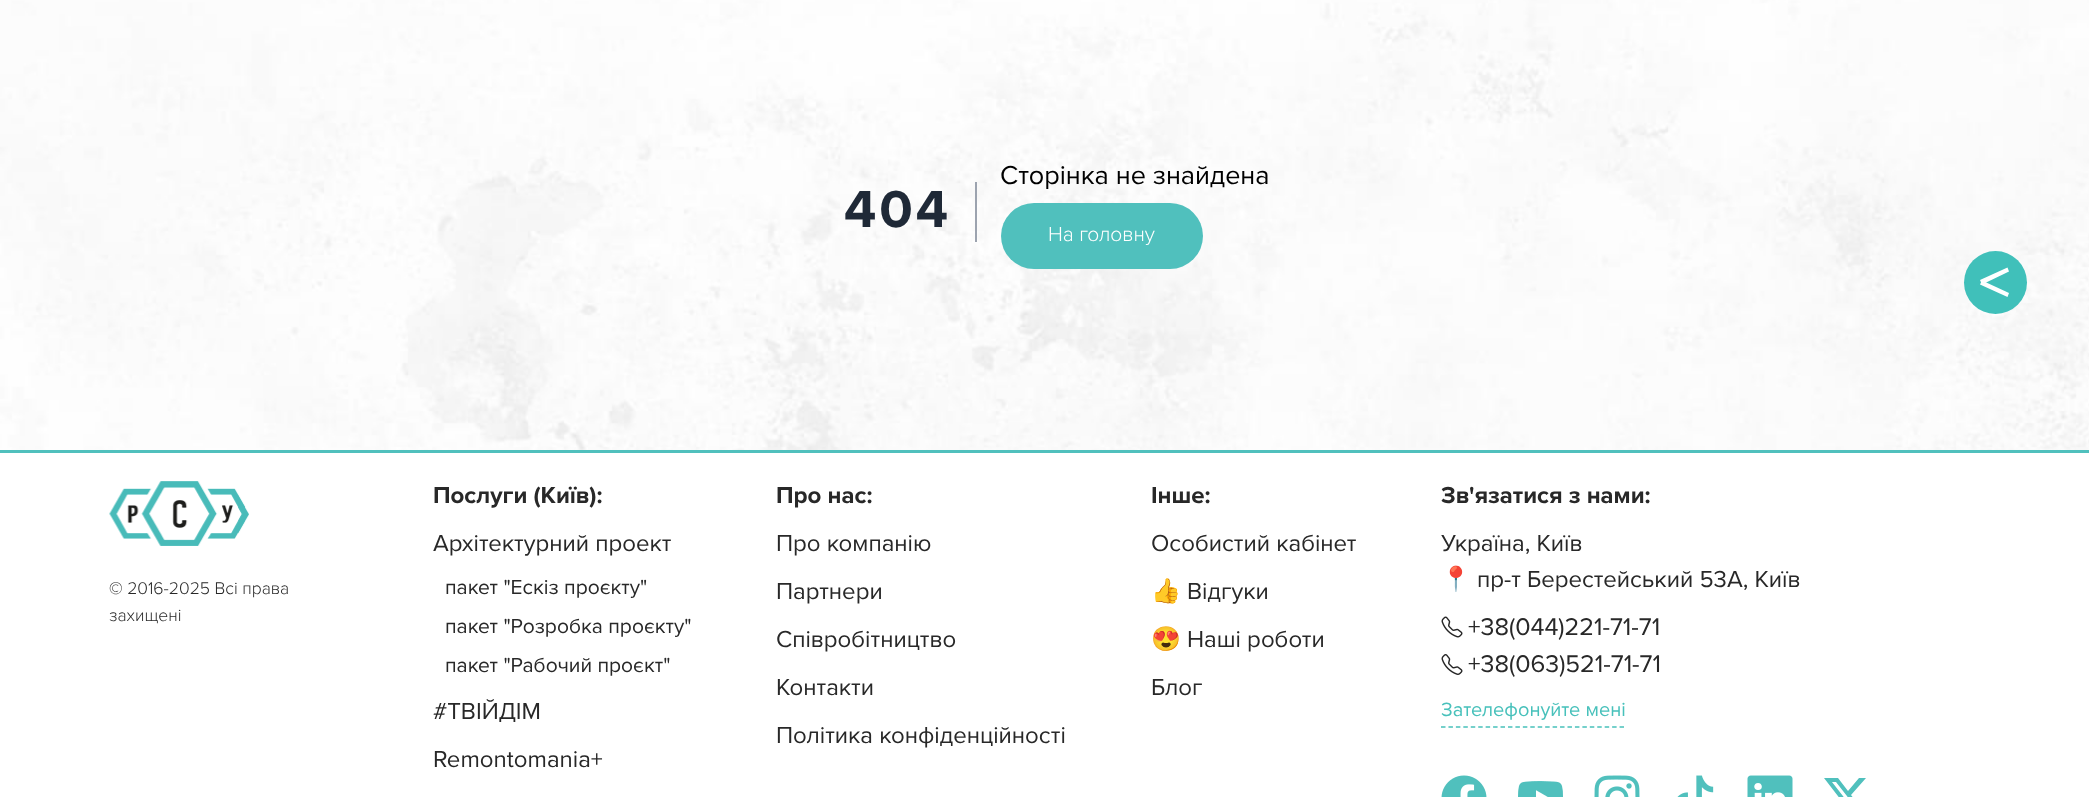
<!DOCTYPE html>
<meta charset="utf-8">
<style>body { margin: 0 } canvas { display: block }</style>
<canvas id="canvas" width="2089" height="797"></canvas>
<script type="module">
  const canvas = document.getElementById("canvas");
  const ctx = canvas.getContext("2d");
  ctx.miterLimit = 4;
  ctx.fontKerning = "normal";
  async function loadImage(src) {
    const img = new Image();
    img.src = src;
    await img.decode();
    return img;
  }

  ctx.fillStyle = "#ffffff";
  ctx.fillRect(0, 0, 2089, 797);
  ctx.drawImage(await loadImage("img1.png"), 0, 0, 2089, 450);
  ctx.fillStyle = "#9ca3af";
  ctx.fillRect(975, 182, 2, 60);
  ctx.letterSpacing = "3px";
  ctx.font = "bold 54px Proxima Nova";
  ctx.fillStyle = "#1f2937";
  ctx.fillText("404", 844, 227);
  ctx.letterSpacing = "0px";
  ctx.font = "27px Proxima Nova";
  ctx.fillStyle = "#000000";
  ctx.fillText("Сторінка не знайдена", 1000, 184);
  ctx.fillStyle = "#50c0bd";
  ctx.beginPath();
  ctx.roundRect(1001, 203, 202, 66, 33);
  ctx.fill();
  ctx.font = "300 21px Proxima Nova";
  ctx.fillStyle = "#ffffff";
  ctx.fillText("На головну", 1048, 241);
  ctx.fillStyle = "#40c0ba";
  ctx.beginPath();
  ctx.arc(1995.5, 282.5, 31.5, 0, Math.PI * 2);
  ctx.fill();
  ctx.fillStyle = "#ffffff";
  ctx.beginPath();
  ctx.moveTo(1980, 280);
  ctx.lineTo(2007.5, 267.5);
  ctx.lineTo(2009, 271.5);
  ctx.lineTo(1982, 284.5);
  ctx.closePath();
  ctx.fill();
  ctx.beginPath();
  ctx.moveTo(1982, 280.5);
  ctx.lineTo(2009, 293);
  ctx.lineTo(2007.5, 297);
  ctx.lineTo(1980, 284.5);
  ctx.closePath();
  ctx.fill();
  ctx.fillStyle = "#50c0bd";
  ctx.fillRect(0, 450, 2089, 3);
  ctx.drawImage(await loadImage("img2.png"), 109, 481, 140, 65);
  ctx.font = "300 17.5px Proxima Nova";
  ctx.fillStyle = "#282828";
  ctx.fillText("© 2016-2025 Всі права", 109, 594);
  ctx.fillText("захищені", 109, 621);
  ctx.font = "bold 24px Proxima Nova";
  ctx.fillText("Послуги (Київ):", 433, 503);
  ctx.font = "24px Proxima Nova";
  ctx.fillText("Архітектурний проект", 433, 551);
  ctx.font = "21px Proxima Nova";
  ctx.fillText("пакет \"Ескіз проєкту\"", 445, 594);
  ctx.fillText("пакет \"Розробка проєкту\"", 445, 633);
  ctx.fillText("пакет \"Рабочий проєкт\"", 445, 672);
  ctx.font = "24px Proxima Nova";
  ctx.fillText("#ТВІЙДІМ", 433, 719);
  ctx.fillText("Remontomania+", 433, 767);
  ctx.font = "bold 24px Proxima Nova";
  ctx.fillText("Про нас:", 776, 503);
  ctx.font = "24px Proxima Nova";
  ctx.fillText("Про компанію", 776, 551);
  ctx.fillText("Партнери", 776, 599);
  ctx.fillText("Співробітництво", 776, 647);
  ctx.fillText("Контакти", 776, 695);
  ctx.fillText("Політика конфіденційності", 776, 743);
  ctx.font = "bold 24px Proxima Nova";
  ctx.fillText("Інше:", 1151, 503);
  ctx.font = "24px Proxima Nova";
  ctx.fillText("Особистий кабінет", 1151, 551);
  ctx.font = "24px Noto Color Emoji";
  ctx.fillText("👍", 1151, 599);
  ctx.font = "24px Proxima Nova";
  ctx.fillText("Відгуки", 1187, 599);
  ctx.font = "24px Noto Color Emoji";
  ctx.fillText("😍", 1151, 647);
  ctx.font = "24px Proxima Nova";
  ctx.fillText("Наші роботи", 1187, 647);
  ctx.fillText("Блог", 1151, 695);
  ctx.font = "bold 24px Proxima Nova";
  ctx.fillText("Зв'язатися з нами:", 1441, 503);
  ctx.font = "24px Proxima Nova";
  ctx.fillText("Україна, Київ", 1441, 551);
  ctx.font = "24px Noto Color Emoji";
  ctx.fillText("📍", 1441, 587);
  ctx.font = "24px Proxima Nova";
  ctx.fillText("пр-т Берестейський 53А, Київ", 1477, 587);
  ctx.drawImage(await loadImage("img3.png"), 1441, 616, 22, 22);
  ctx.font = "25px Proxima Nova";
  ctx.fillText("+38(044)221-71-71", 1468, 635);
  ctx.drawImage(await loadImage("img4.png"), 1441, 654, 22, 21);
  ctx.fillText("+38(063)521-71-71", 1468, 672);
  ctx.font = "20px Proxima Nova";
  ctx.fillStyle = "#48c1bb";
  ctx.fillText("Зателефонуйте мені", 1441, 716);
  ctx.beginPath();
  ctx.moveTo(1441, 727);
  ctx.lineTo(1624, 727);
  ctx.strokeStyle = "#48c1bb";
  ctx.lineWidth = 1.5;
  ctx.setLineDash([4.5, 2.94]);
  ctx.stroke();
  ctx.drawImage(await loadImage("img5.png"), 1441, 775, 46, 22);
  ctx.drawImage(await loadImage("img6.png"), 1518, 781, 45, 16);
  ctx.drawImage(await loadImage("img7.png"), 1594, 775, 46, 22);
  ctx.drawImage(await loadImage("img8.png"), 1677, 775, 37, 22);
  ctx.drawImage(await loadImage("img9.png"), 1747, 775, 46, 22);
  ctx.fillStyle = "#50c0bd";
  ctx.beginPath();
  ctx.moveTo(1859, 778);
  ctx.lineTo(1866, 778);
  ctx.lineTo(1851, 795);
  ctx.lineTo(1869, 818);
  ctx.lineTo(1855, 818);
  ctx.lineTo(1844, 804);
  ctx.lineTo(1832, 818);
  ctx.lineTo(1825, 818);
  ctx.lineTo(1841, 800);
  ctx.lineTo(1824, 778);
  ctx.lineTo(1838, 778);
  ctx.lineTo(1848, 791);
  ctx.closePath();
  ctx.moveTo(1857, 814);
  ctx.lineTo(1861, 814);
  ctx.lineTo(1836, 782);
  ctx.lineTo(1832, 782);
  ctx.closePath();
  ctx.fill();
</script>
